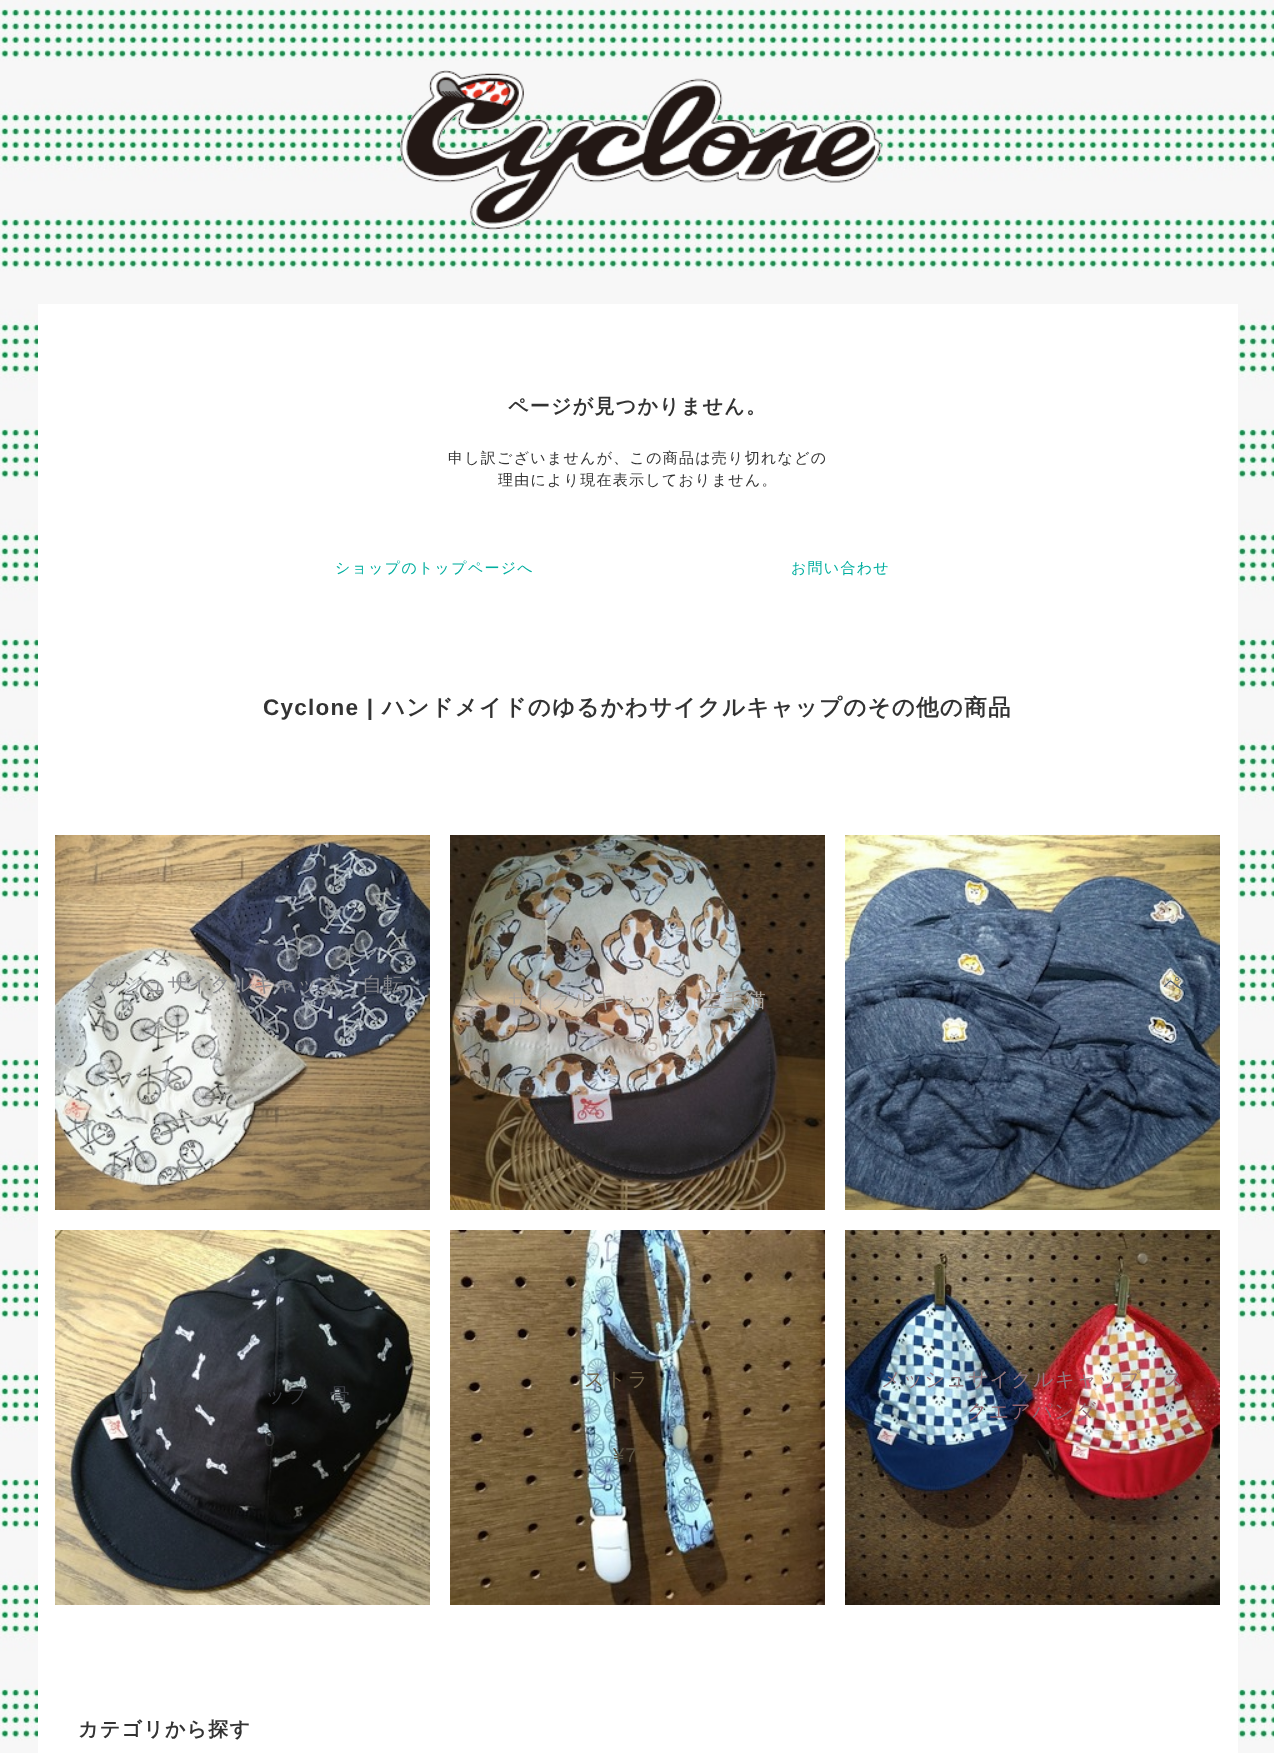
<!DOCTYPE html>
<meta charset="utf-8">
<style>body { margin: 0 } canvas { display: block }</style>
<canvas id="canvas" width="1274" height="1753"></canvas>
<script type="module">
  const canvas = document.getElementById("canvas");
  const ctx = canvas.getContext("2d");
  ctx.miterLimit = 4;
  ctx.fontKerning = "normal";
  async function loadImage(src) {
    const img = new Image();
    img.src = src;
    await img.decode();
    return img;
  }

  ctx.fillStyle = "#ffffff";
  ctx.fillRect(0, 0, 1274, 1753);
  ctx.drawImage(await loadImage("img1.png"), 0, 0, 1274, 1753);
  ctx.drawImage(await loadImage("img2.png"), 399, 70, 483, 160);
  ctx.fillRect(38, 304, 1200, 1449);
  ctx.letterSpacing = "1.25px";
  ctx.font = "bold 20px WenQuanYi Zen Hei";
  ctx.fillStyle = "#333333";
  ctx.fillText("ページが見つかりません。", 508, 413);
  ctx.font = "500 15px WenQuanYi Zen Hei";
  ctx.fillText("申し訳ございませんが、この商品は売り切れなどの", 448, 463);
  ctx.fillText("理由により現在表示しておりません。", 498, 485);
  ctx.fillStyle = "#00ae9f";
  ctx.fillText("ショップのトップページへ", 335, 573);
  ctx.fillText("お問い合わせ", 791, 573);
  ctx.font = "bold 22.5px Liberation Sans";
  ctx.fillStyle = "#333333";
  ctx.fillText("Cyclone |", 263, 715);
  ctx.font = "bold 22.5px WenQuanYi Zen Hei";
  ctx.fillText("ハンドメイドのゆるかわサイクルキャップのその他の商品", 382, 715);
  ctx.drawImage(await loadImage("img3.png"), 55, 835, 375, 375);
  ctx.font = "500 20px WenQuanYi Zen Hei";
  ctx.fillStyle = "#898a8f";
  ctx.fillText("メッシュサイクルキャップ　自転", 80, 991);
  ctx.font = "20px Liberation Sans";
  ctx.fillStyle = "#bbbbb4";
  ctx.fillText(",", 233, 1067);
  ctx.drawImage(await loadImage("img4.png"), 845, 835, 375, 375);
  ctx.font = "500 20px WenQuanYi Zen Hei";
  ctx.fillStyle = "#4e5e71";
  ctx.fillText("ペ", 1163, 991);
  ctx.drawImage(await loadImage("img5.png"), 450, 835, 375, 375);
  ctx.fillStyle = "#a8a19a";
  ctx.fillText("サイクルキャップ　三毛猫", 508, 1007);
  ctx.font = "20px Liberation Sans";
  ctx.fillStyle = "#bcb3ad";
  ctx.fillText(",85", 628, 1051);
  ctx.drawImage(await loadImage("img6.png"), 55, 1230, 375, 375);
  ctx.font = "500 20px WenQuanYi Zen Hei";
  ctx.fillStyle = "#3c3e44";
  ctx.fillText("サ", 134, 1402);
  ctx.fillText("ップ　骨", 265, 1402);
  ctx.font = "20px Liberation Sans";
  ctx.fillStyle = "#333333";
  ctx.fillText("0", 264, 1446);
  ctx.drawImage(await loadImage("img7.png"), 450, 1230, 375, 375);
  ctx.font = "500 20px WenQuanYi Zen Hei";
  ctx.fillStyle = "#6d6048";
  ctx.fillText("ストラ", 584, 1386);
  ctx.font = "20px Liberation Sans";
  ctx.fillStyle = "#585141";
  ctx.fillText("¥7", 613, 1462);
  ctx.drawImage(await loadImage("img8.png"), 845, 1230, 375, 375);
  ctx.font = "500 20px WenQuanYi Zen Hei";
  ctx.fillStyle = "#94787f";
  ctx.fillText("メッシュサイクルキャップ　ス", 881, 1386);
  ctx.fillStyle = "#946671";
  ctx.fillText("クエアパンダ", 967, 1418);
  ctx.font = "20px Liberation Sans";
  ctx.fillStyle = "#36201e";
  ctx.fillText(",", 1023, 1462);
  ctx.font = "bold 20px WenQuanYi Zen Hei";
  ctx.fillStyle = "#333333";
  ctx.fillText("カテゴリから探す", 78, 1736);
</script>
